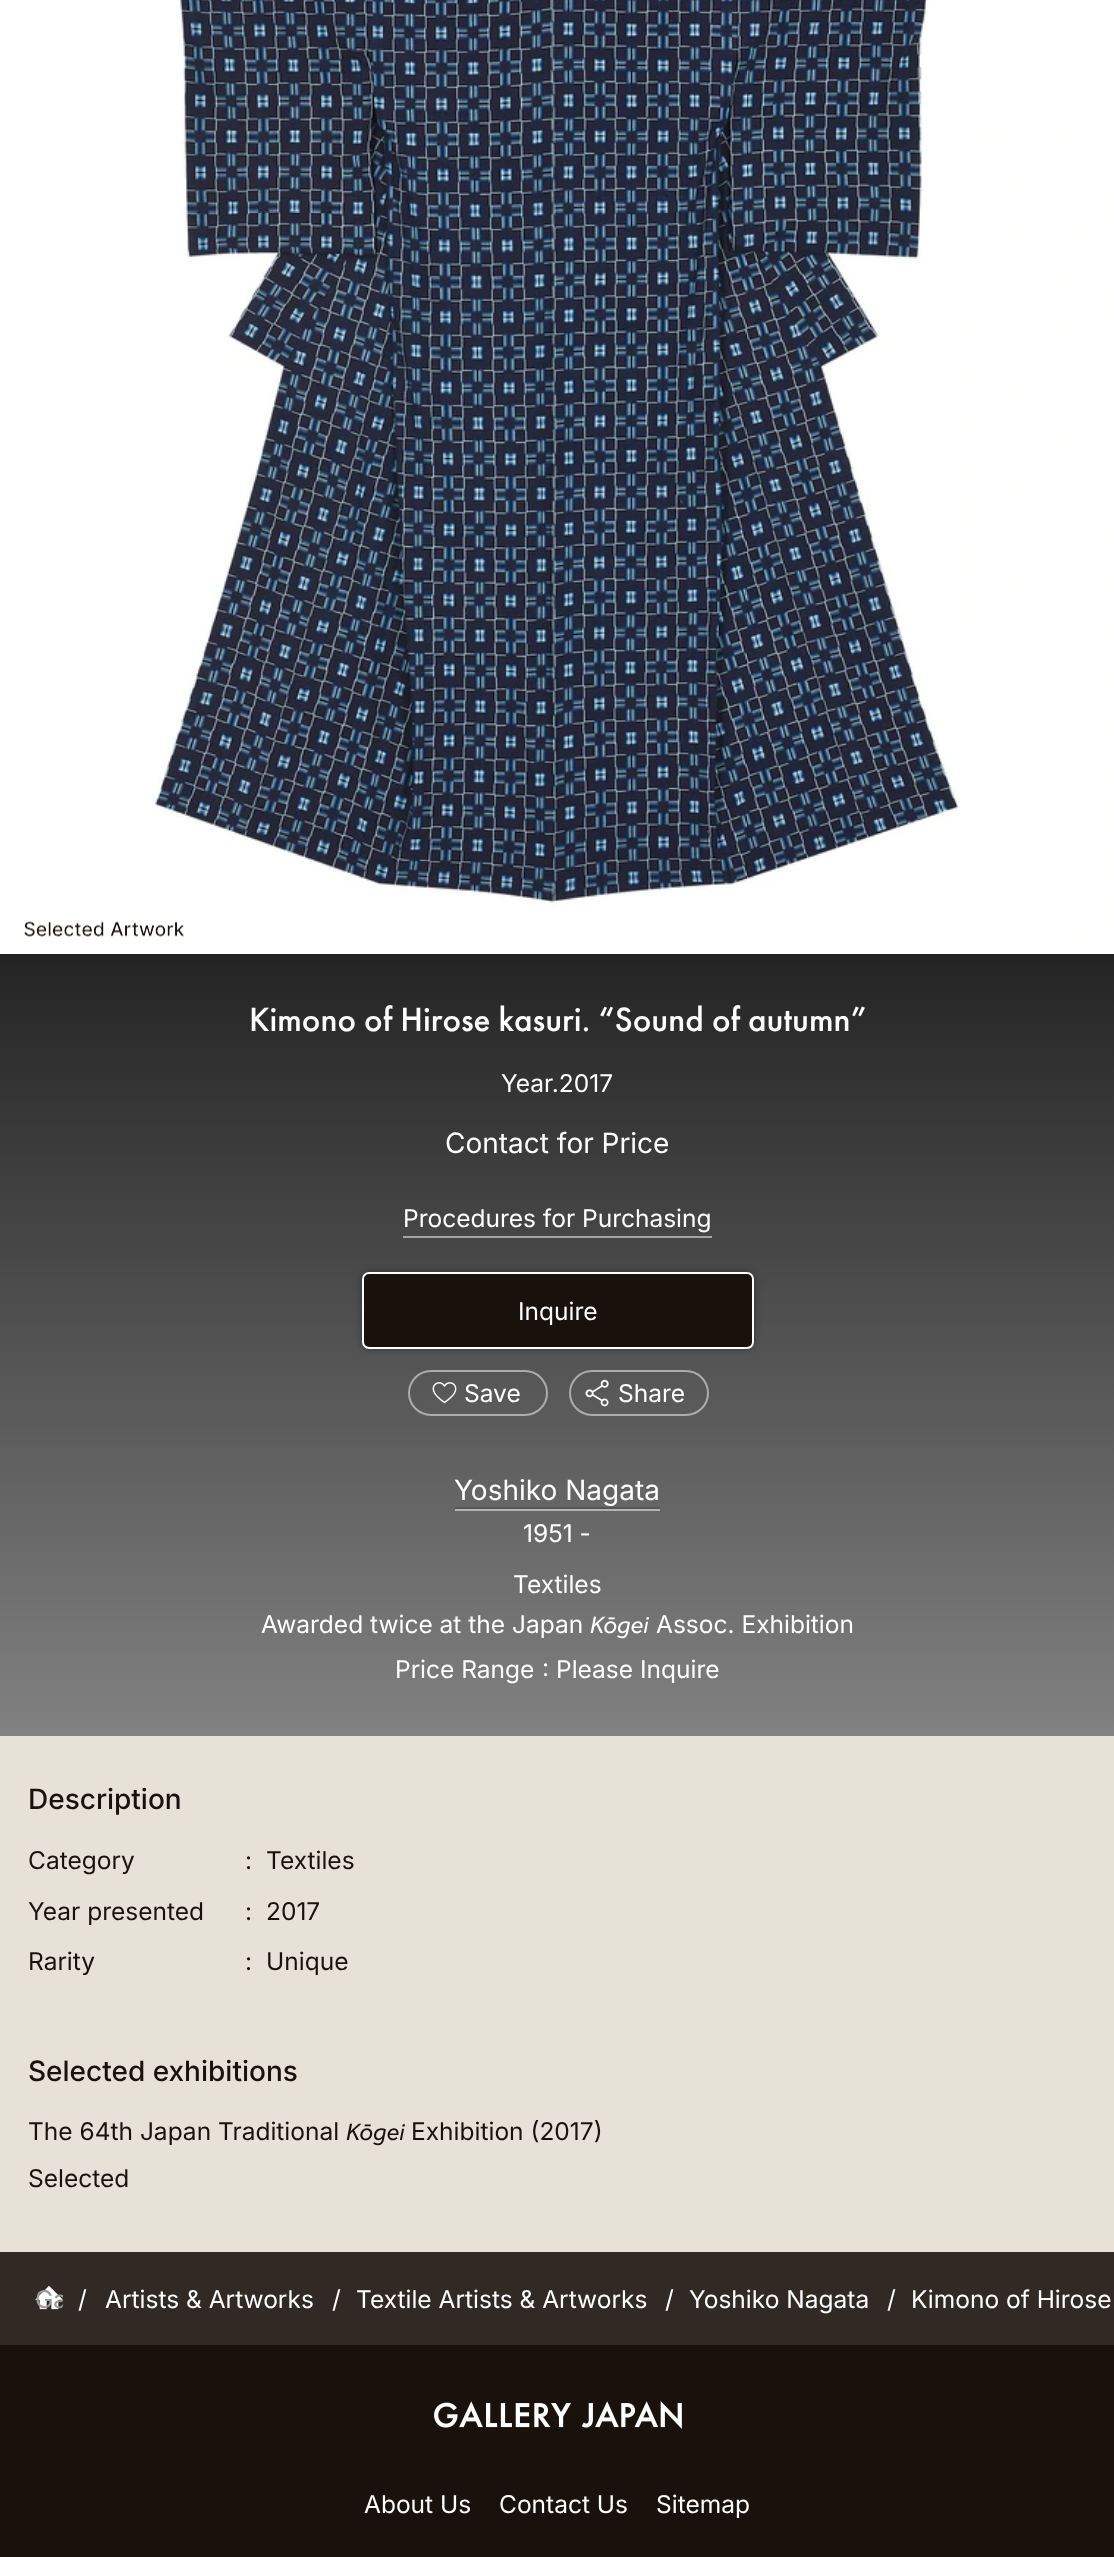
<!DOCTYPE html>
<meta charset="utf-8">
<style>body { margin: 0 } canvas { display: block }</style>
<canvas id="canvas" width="1114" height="2557"></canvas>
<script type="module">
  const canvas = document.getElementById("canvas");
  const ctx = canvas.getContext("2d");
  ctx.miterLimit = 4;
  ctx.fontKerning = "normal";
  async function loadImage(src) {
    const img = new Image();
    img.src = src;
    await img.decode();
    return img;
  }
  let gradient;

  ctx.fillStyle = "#e6e2d8";
  ctx.fillRect(0, 0, 1114, 2557);
  ctx.drawImage(await loadImage("img1.png"), 0, 0, 1114, 954);
  ctx.drawImage(await loadImage("img2.png"), 24, 921, 160, 16);
  gradient = ctx.createLinearGradient(557, 954, 557, 1736);
  gradient.addColorStop(0, "#242424");
  gradient.addColorStop(1, "#818181");
  ctx.fillStyle = gradient;
  ctx.fillRect(0, 954, 1114, 782);
  ctx.font = "500 35px Futura PT";
  ctx.fillStyle = "#ffffff";
  ctx.fillText("Kimono of Hirose kasuri. “Sound of autumn”", 249, 1031);
  ctx.font = "24.5px Inter";
  ctx.fillText("Year.2017", 501, 1092);
  ctx.font = "28px Inter";
  ctx.fillText("Contact for Price", 445, 1153);
  ctx.fillStyle = "#a3a3a3";
  ctx.fillRect(403, 1236, 309, 2);
  ctx.font = "24.5px Inter";
  ctx.fillStyle = "#ffffff";
  ctx.fillText("Procedures for Purchasing", 403, 1227);
  ctx.fillStyle = "rgba(0, 0, 0, 0.34)";
  ctx.filter = "blur(3.5px)";
  ctx.beginPath();
  ctx.roundRect(362, 1272, 392, 77, 7);
  ctx.fill();
  ctx.filter = "none";
  ctx.fillStyle = "#19110b";
  ctx.beginPath();
  ctx.roundRect(363, 1273, 390, 75, 6);
  ctx.fill();
  ctx.strokeStyle = "#ffffff";
  ctx.lineWidth = 2;
  ctx.stroke();
  ctx.fillStyle = "#ffffff";
  ctx.fillText("Inquire", 518, 1320);
  ctx.beginPath();
  ctx.roundRect(409, 1371, 138, 44, 22);
  ctx.strokeStyle = "rgba(255, 255, 255, 0.5)";
  ctx.stroke();
  ctx.drawImage(await loadImage("img3.png"), 432, 1382, 25, 22);
  ctx.fillText("Save", 464, 1402);
  ctx.drawImage(await loadImage("img4.png"), 585, 1379, 24, 28);
  ctx.beginPath();
  ctx.roundRect(570, 1371, 138, 44, 22);
  ctx.stroke();
  ctx.fillText("Share", 618, 1402);
  ctx.font = "28px Inter";
  ctx.fillText("Yoshiko Nagata", 454, 1500);
  ctx.fillStyle = "#565656";
  ctx.fillRect(455, 1507, 205, 2);
  ctx.fillStyle = "#b3b3b3";
  ctx.fillRect(455, 1509, 205, 2);
  ctx.font = "24.5px Inter";
  ctx.fillStyle = "#ffffff";
  ctx.fillText("1951 -", 523, 1542);
  ctx.fillText("Textiles", 513, 1593);
  ctx.fillText("Awarded twice at the Japan", 261, 1633);
  ctx.font = "italic 24.5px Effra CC";
  ctx.fillText("Kōgei", 590, 1633);
  ctx.font = "24.5px Inter";
  ctx.fillText("Assoc. Exhibition", 656, 1633);
  ctx.fillText("Price Range", 395, 1678);
  ctx.fillText(":", 542, 1676);
  ctx.fillText("Please Inquire", 556, 1678);
  ctx.font = "500 28px Inter";
  ctx.fillStyle = "#19110b";
  ctx.fillText("Description", 28, 1809);
  ctx.font = "24.5px Inter";
  ctx.fillText("Category", 28, 1869);
  ctx.fillText(":", 245, 1869);
  ctx.fillText("Textiles", 266, 1869);
  ctx.fillText("Year presented", 28, 1920);
  ctx.fillText(":", 245, 1920);
  ctx.fillText("2017", 266, 1920);
  ctx.fillText("Rarity", 28, 1970);
  ctx.fillText(":", 245, 1970);
  ctx.fillText("Unique", 266, 1970);
  ctx.font = "500 28px Inter";
  ctx.fillText("Selected exhibitions", 28, 2081);
  ctx.font = "24.5px Inter";
  ctx.fillText("The 64th Japan Traditional", 28, 2140);
  ctx.font = "italic 24.5px Effra CC";
  ctx.fillText("Kōgei", 346, 2140);
  ctx.font = "24.5px Inter";
  ctx.fillText("Exhibition (2017)", 411, 2140);
  ctx.fillText("Selected", 28, 2187);
  ctx.fillRect(0, 2345, 1114, 212);
  ctx.fillStyle = "#302924";
  ctx.fillRect(0, 2252, 1114, 93);
  ctx.drawImage(await loadImage("img5.png"), 35, 2286, 28, 24);
  ctx.save();
  ctx.beginPath();
  ctx.rect(35, 2280, 28, 37);
  ctx.clip();
  ctx.fillStyle = "#9b9895";
  ctx.fillText("Ga", 35, 2308);
  ctx.restore();
  ctx.fillStyle = "#ffffff";
  ctx.fillText("/", 78, 2308);
  ctx.fillText("Artists & Artworks", 105, 2308);
  ctx.fillText("/", 332, 2308);
  ctx.fillText("Textile Artists & Artworks", 356, 2308);
  ctx.fillText("/", 665, 2308);
  ctx.fillText("Yoshiko Nagata", 689, 2308);
  ctx.fillText("/", 887, 2308);
  ctx.fillText("Kimono of Hirose", 911, 2308);
  ctx.drawImage(await loadImage("img6.png"), 434, 2401, 248, 28);
  ctx.fillText("About Us", 364, 2513);
  ctx.fillText("Contact Us", 499, 2513);
  ctx.fillText("Sitemap", 656, 2513);
</script>
